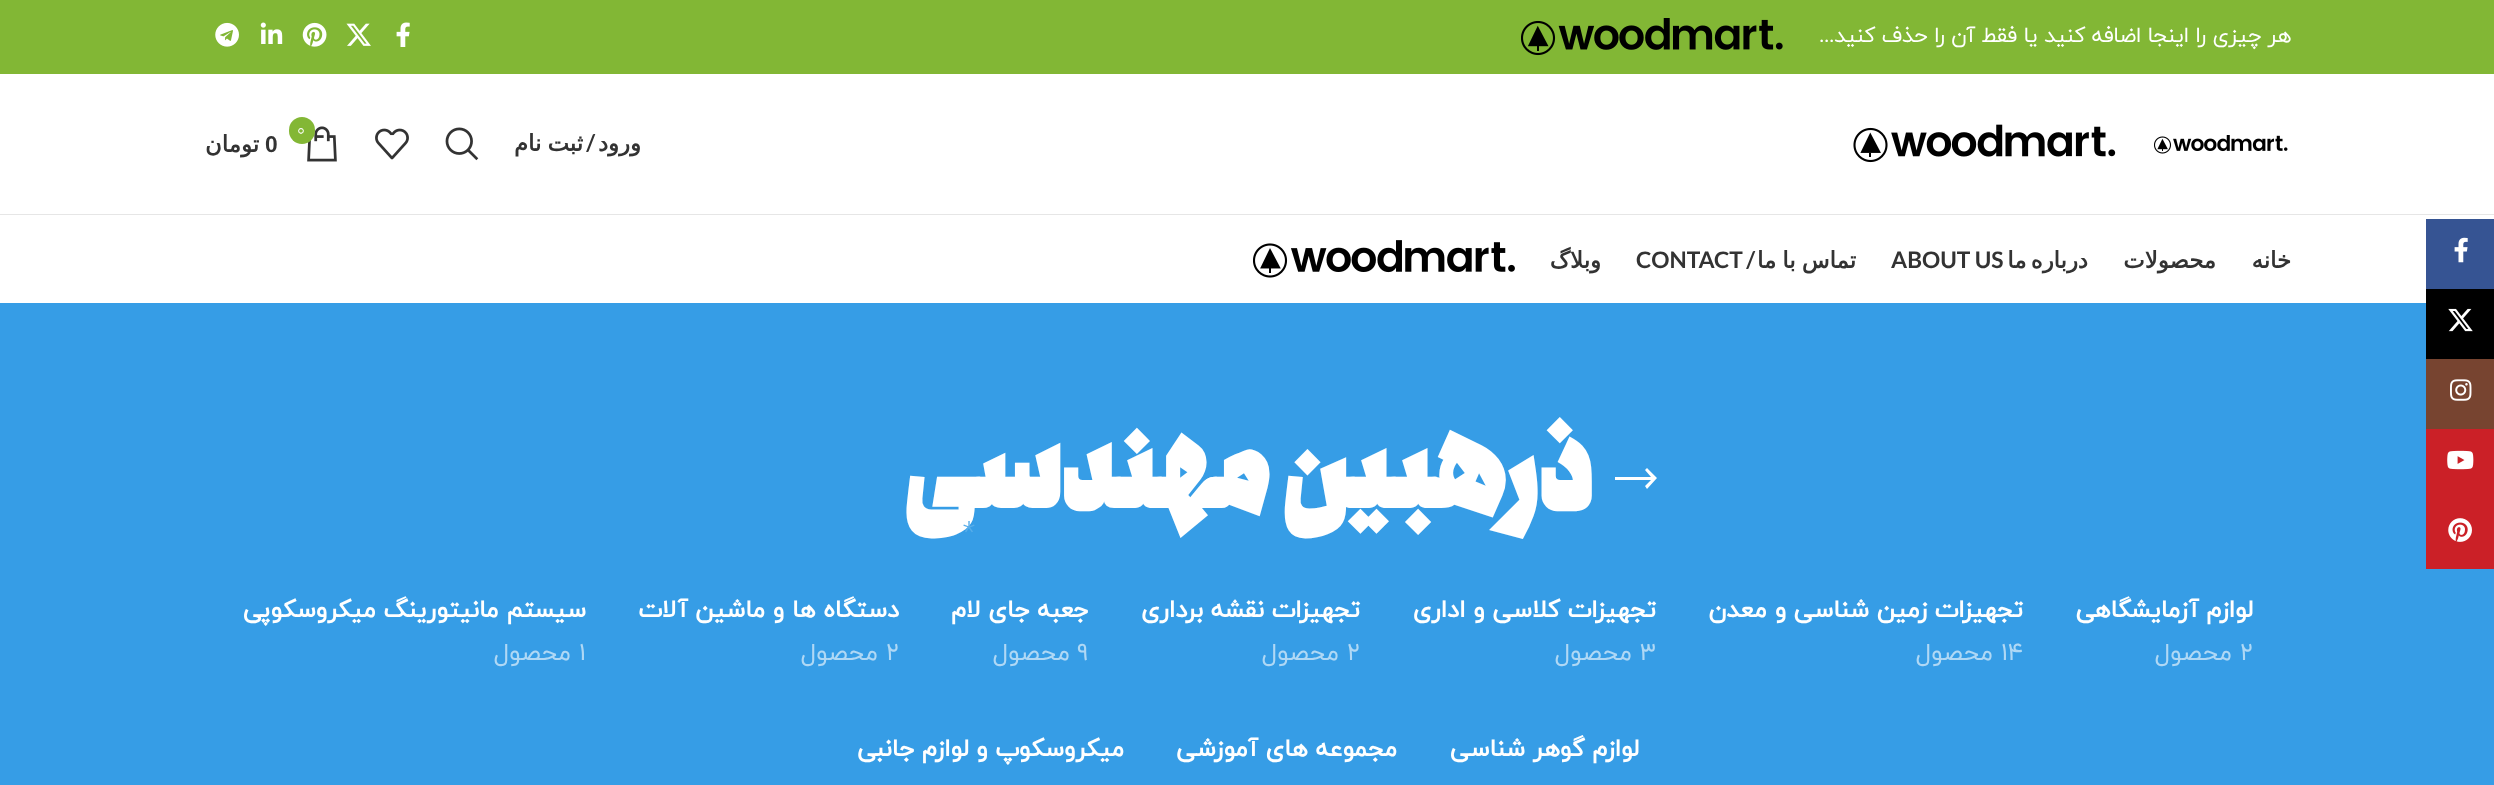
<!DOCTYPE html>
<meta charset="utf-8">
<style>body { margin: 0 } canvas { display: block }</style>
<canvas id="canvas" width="2494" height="785"></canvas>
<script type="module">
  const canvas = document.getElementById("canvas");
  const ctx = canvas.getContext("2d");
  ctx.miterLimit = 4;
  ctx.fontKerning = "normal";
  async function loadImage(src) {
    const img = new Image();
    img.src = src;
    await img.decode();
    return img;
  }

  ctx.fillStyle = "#369de6";
  ctx.fillRect(0, 0, 2494, 785);
  ctx.fillStyle = "#ffffff";
  ctx.fillRect(0, 74, 2494, 229);
  ctx.fillStyle = "#365493";
  ctx.fillRect(2426, 219, 68, 70);
  ctx.drawImage(await loadImage("img1.png"), 2454, 237, 14, 26);
  ctx.fillStyle = "#000000";
  ctx.fillRect(2426, 289, 68, 70);
  ctx.drawImage(await loadImage("img2.png"), 2448, 308, 25, 24);
  ctx.fillStyle = "#774430";
  ctx.fillRect(2426, 359, 68, 70);
  ctx.drawImage(await loadImage("img3.png"), 2450, 379, 22, 22);
  ctx.fillStyle = "#cb2027";
  ctx.fillRect(2426, 429, 68, 140);
  ctx.drawImage(await loadImage("img4.png"), 2447, 450, 27, 20);
  ctx.drawImage(await loadImage("img5.png"), 2448, 518, 24, 24);
  ctx.fillStyle = "#82b735";
  ctx.fillRect(0, 0, 2494, 74);
  ctx.direction = "rtl";
  ctx.font = "bold 21px 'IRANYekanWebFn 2'";
  ctx.fillStyle = "#ffffff";
  ctx.fillText("هر چیزی را اینجا اضافه کنید یا فقط آن را حذف کنید...", 2291, 42);
  ctx.drawImage(await loadImage("img6.png"), 1521, 18, 262, 38);
  ctx.drawImage(await loadImage("img7.png"), 396, 22, 14, 25);
  ctx.drawImage(await loadImage("img8.png"), 346, 23, 25, 23);
  ctx.drawImage(await loadImage("img9.png"), 302, 22, 25, 25);
  ctx.drawImage(await loadImage("img10.png"), 260, 22, 23, 22);
  ctx.drawImage(await loadImage("img11.png"), 215, 22, 24, 25);
  ctx.font = "bold 22.75px DejaVu Sans";
  ctx.fillStyle = "#333333";
  ctx.fillText("خانه", 2291, 268);
  ctx.fillText("محصولات", 2216, 268);
  ctx.wordSpacing = "-3px";
  ctx.fillText("درباره ما", 2088, 268);
  ctx.wordSpacing = "0px";
  ctx.direction = "ltr";
  ctx.font = "bold 22.75px Lato";
  ctx.fillText("ABOUT US", 1891, 268);
  ctx.wordSpacing = "-1px";
  ctx.direction = "rtl";
  ctx.font = "bold 22.75px DejaVu Sans";
  ctx.fillText("تماس با ما", 1856, 268);
  ctx.wordSpacing = "0px";
  ctx.font = "bold 22.75px Lato";
  ctx.fillText("/", 1755, 268);
  ctx.direction = "ltr";
  ctx.fillText("CONTACT", 1636, 268);
  ctx.direction = "rtl";
  ctx.font = "bold 22.75px DejaVu Sans";
  ctx.fillText("وبلاگ", 1601, 268);
  ctx.drawImage(await loadImage("img12.png"), 1253, 240, 262, 38);
  ctx.fillStyle = "rgba(129, 129, 129, 0.2)";
  ctx.fillRect(0, 214, 2494, 1);
  ctx.drawImage(await loadImage("img13.png"), 2154, 135, 134, 19);
  ctx.drawImage(await loadImage("img14.png"), 1853, 124, 263, 39);
  ctx.fillStyle = "#333333";
  ctx.fillText("ورود", 641, 151);
  ctx.font = "bold 22.75px Lato";
  ctx.fillText("/", 595, 151);
  ctx.wordSpacing = "-1px";
  ctx.font = "bold 22.75px DejaVu Sans";
  ctx.fillText("ثبت نام", 583, 151);
  ctx.wordSpacing = "0px";
  ctx.font = "bold 119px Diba";
  ctx.fillStyle = "#ffffff";
  ctx.fillText("ذرهبین مهندسی", 1592, 508);
  ctx.direction = "ltr";
  ctx.font = "300 28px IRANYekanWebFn";
  ctx.fillStyle = "#59aeea";
  ctx.fillText("*", 963, 541);
  ctx.drawImage(await loadImage("img15.png"), 445, 127, 34, 34);
  ctx.drawImage(await loadImage("img16.png"), 375, 128, 34, 32);
  ctx.drawImage(await loadImage("img17.png"), 307, 126, 30, 36);
  ctx.fillStyle = "#83b735";
  ctx.beginPath();
  ctx.roundRect(289, 117, 26, 27, 13);
  ctx.fill();
  ctx.font = "300 16px IRANYekanWebFn";
  ctx.fillStyle = "#ffffff";
  ctx.fillText("0", 297, 135);
  ctx.font = "bold 22.75px Liberation Sans";
  ctx.fillStyle = "#333333";
  ctx.fillText("0", 265, 152);
  ctx.direction = "rtl";
  ctx.font = "bold 22.75px DejaVu Sans";
  ctx.fillText("تومان", 259, 152);
  ctx.fillStyle = "#ffffff";
  ctx.beginPath();
  ctx.moveTo(1657, 478);
  ctx.lineTo(1647, 468);
  ctx.lineTo(1645, 470);
  ctx.lineTo(1651, 477);
  ctx.lineTo(1615, 477);
  ctx.lineTo(1615, 480);
  ctx.lineTo(1651, 480);
  ctx.lineTo(1645, 486);
  ctx.lineTo(1647, 489);
  ctx.closePath();
  ctx.fill();
  ctx.font = "bold 24.5px IRANYekanWebFn";
  ctx.fillText("لوازم آزمایشگاهی", 2253, 617);
  ctx.direction = "ltr";
  ctx.font = "24.5px IRANYekanWebFn";
  ctx.fillStyle = "#afd8f5";
  ctx.fillText("2", 2240, 660);
  ctx.direction = "rtl";
  ctx.fillText("محصول", 2232, 660);
  ctx.font = "bold 24.5px IRANYekanWebFn";
  ctx.fillStyle = "#ffffff";
  ctx.fillText("تجهیزات زمین شناسی و معدن", 2023, 617);
  ctx.direction = "ltr";
  ctx.font = "24.5px IRANYekanWebFn";
  ctx.fillStyle = "#afd8f5";
  ctx.fillText("14", 2001, 660);
  ctx.direction = "rtl";
  ctx.fillText("محصول", 1993, 660);
  ctx.font = "bold 24.5px IRANYekanWebFn";
  ctx.fillStyle = "#ffffff";
  ctx.fillText("تجهیزات کلاسی و اداری", 1656, 617);
  ctx.direction = "ltr";
  ctx.font = "24.5px IRANYekanWebFn";
  ctx.fillStyle = "#afd8f5";
  ctx.fillText("3", 1640, 660);
  ctx.direction = "rtl";
  ctx.fillText("محصول", 1632, 660);
  ctx.font = "bold 24.5px IRANYekanWebFn";
  ctx.fillStyle = "#ffffff";
  ctx.fillText("تجهیزات نقشه برداری", 1360, 617);
  ctx.direction = "ltr";
  ctx.font = "24.5px IRANYekanWebFn";
  ctx.fillStyle = "#afd8f5";
  ctx.fillText("2", 1347, 660);
  ctx.direction = "rtl";
  ctx.fillText("محصول", 1339, 660);
  ctx.font = "bold 24.5px IRANYekanWebFn";
  ctx.fillStyle = "#ffffff";
  ctx.fillText("جعبه جای لام", 1088, 617);
  ctx.direction = "ltr";
  ctx.font = "24.5px IRANYekanWebFn";
  ctx.fillStyle = "#afd8f5";
  ctx.fillText("9", 1077, 660);
  ctx.direction = "rtl";
  ctx.fillText("محصول", 1070, 660);
  ctx.font = "bold 24.5px IRANYekanWebFn";
  ctx.fillStyle = "#ffffff";
  ctx.fillText("دستگاه ها و ماشین آلات", 899, 617);
  ctx.direction = "ltr";
  ctx.font = "24.5px IRANYekanWebFn";
  ctx.fillStyle = "#afd8f5";
  ctx.fillText("2", 886, 660);
  ctx.direction = "rtl";
  ctx.fillText("محصول", 878, 660);
  ctx.font = "bold 24.5px IRANYekanWebFn";
  ctx.fillStyle = "#ffffff";
  ctx.fillText("سیستم مانیتورینگ میکروسکوپی", 586, 617);
  ctx.direction = "ltr";
  ctx.font = "24.5px IRANYekanWebFn";
  ctx.fillStyle = "#afd8f5";
  ctx.fillText("1", 579, 660);
  ctx.direction = "rtl";
  ctx.fillText("محصول", 571, 660);
  ctx.font = "bold 24.5px IRANYekanWebFn";
  ctx.fillStyle = "#ffffff";
  ctx.fillText("لوازم گوهر شناسی", 1639, 756);
  ctx.fillText("مجموعه های آموزشی", 1397, 756);
  ctx.fillText("میکروسکوپ و لوازم جانبی", 1124, 756);
</script>
